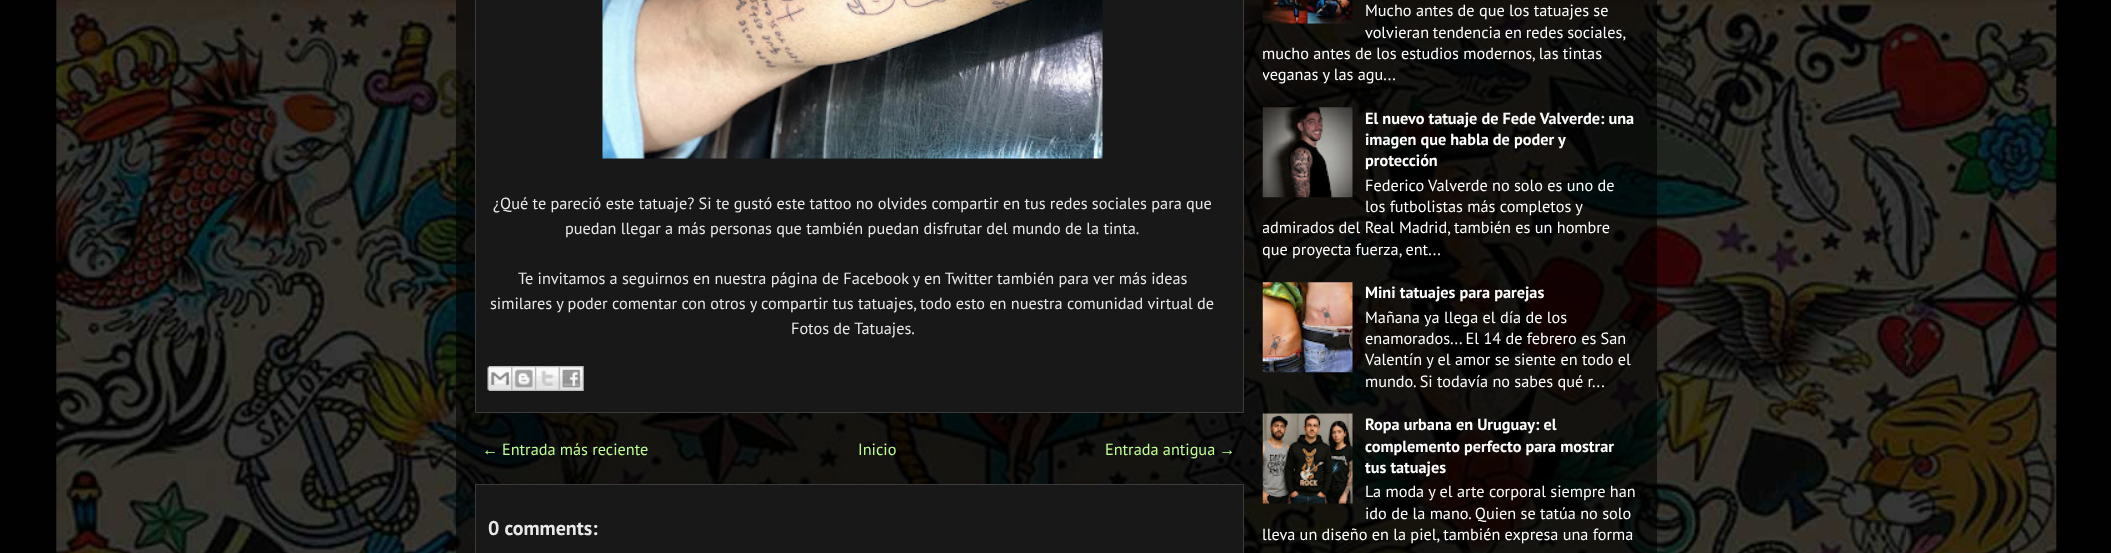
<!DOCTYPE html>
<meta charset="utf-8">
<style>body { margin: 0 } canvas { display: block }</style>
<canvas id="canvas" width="2111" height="553"></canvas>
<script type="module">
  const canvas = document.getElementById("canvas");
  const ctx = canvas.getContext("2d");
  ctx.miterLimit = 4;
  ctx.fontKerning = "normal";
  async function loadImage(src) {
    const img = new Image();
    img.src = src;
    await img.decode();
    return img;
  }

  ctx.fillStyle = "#010101";
  ctx.fillRect(0, 0, 2111, 553);
  ctx.drawImage(await loadImage("img1.png"), 56, 0, 2001, 553);
  ctx.fillStyle = "rgba(0, 0, 0, 0.6)";
  ctx.fillRect(456, 0, 1201, 553);
  ctx.fillStyle = "#181818";
  ctx.beginPath();
  ctx.rect(475.5, -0.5, 768, 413);
  ctx.fill();
  ctx.strokeStyle = "#3b3b3b";
  ctx.stroke();
  ctx.drawImage(await loadImage("img2.png"), 602, 0, 501, 159);
  ctx.font = "16.25px PT Sans";
  ctx.fillStyle = "#e8e8e8";
  ctx.fillText("¿Qué te pareció este tatuaje? Si te gustó este tattoo no olvides compartir en tus redes sociales para que", 493, 209);
  ctx.fillText("puedan llegar a más personas que también puedan disfrutar del mundo de la tinta.", 565, 234);
  ctx.fillText("Te invitamos a seguirnos en nuestra página de Facebook y en Twitter también para ver más ideas", 518, 284);
  ctx.fillText("similares y poder comentar con otros y compartir tus tatuajes, todo esto en nuestra comunidad virtual de", 490, 309);
  ctx.fillText("Fotos de Tatuajes.", 791, 334);
  ctx.drawImage(await loadImage("img3.png"), 487, 366, 25, 25);
  ctx.drawImage(await loadImage("img4.png"), 511, 366, 24, 25);
  ctx.drawImage(await loadImage("img5.png"), 535, 366, 24, 25);
  ctx.drawImage(await loadImage("img6.png"), 558, 366, 26, 25);
  ctx.font = "16.25px Liberation Sans";
  ctx.fillStyle = "#befe92";
  ctx.fillText("←", 482, 455);
  ctx.font = "16.25px PT Sans";
  ctx.fillText("Entrada más reciente", 502, 455);
  ctx.fillText("Inicio", 858, 455);
  ctx.fillText("Entrada antigua", 1105, 455);
  ctx.font = "16.25px Liberation Sans";
  ctx.fillText("→", 1219, 455);
  ctx.fillStyle = "#181818";
  ctx.beginPath();
  ctx.rect(475.5, 484.5, 768, 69);
  ctx.fill();
  ctx.stroke();
  ctx.font = "bold 20px PT Sans";
  ctx.fillStyle = "#e8e8e8";
  ctx.fillText("0 comments:", 488, 535);
  ctx.drawImage(await loadImage("img7.png"), 1262, 0, 91, 24);
  ctx.font = "16.25px PT Sans";
  ctx.fillStyle = "#ffffff";
  ctx.fillText("Mucho antes de que los tatuajes se", 1365, 16);
  ctx.wordSpacing = "-0.5px";
  ctx.fillText("volvieran tendencia en redes sociales,", 1365, 38);
  ctx.wordSpacing = "0px";
  ctx.fillText("mucho antes de los estudios modernos, las tintas", 1262, 59);
  ctx.save();
  ctx.beginPath();
  ctx.rect(1263, 0, 375, 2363);
  ctx.clip();
  ctx.fillText("veganas y las agu...", 1262, 80);
  ctx.restore();
  ctx.drawImage(await loadImage("img8.png"), 1262, 107, 91, 91);
  ctx.font = "bold 16.25px PT Sans";
  ctx.fillText("El nuevo tatuaje de Fede Valverde: una", 1365, 124);
  ctx.fillText("imagen que habla de poder y", 1365, 145);
  ctx.fillText("protección", 1365, 166);
  ctx.font = "16.25px PT Sans";
  ctx.fillText("Federico Valverde no solo es uno de", 1365, 191);
  ctx.fillText("los futbolistas más completos y", 1365, 212);
  ctx.save();
  ctx.beginPath();
  ctx.rect(1263, 0, 375, 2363);
  ctx.clip();
  ctx.fillText("admirados del Real Madrid, también es un hombre", 1262, 233);
  ctx.fillText("que proyecta fuerza, ent...", 1262, 255);
  ctx.restore();
  ctx.drawImage(await loadImage("img9.png"), 1262, 282, 91, 91);
  ctx.font = "bold 16.25px PT Sans";
  ctx.fillText("Mini tatuajes para parejas", 1365, 298);
  ctx.font = "16.25px PT Sans";
  ctx.fillText("Mañana ya llega el día de los", 1365, 323);
  ctx.fillText("enamorados... El 14 de febrero es San", 1365, 344);
  ctx.fillText("Valentín y el amor se siente en todo el", 1365, 365);
  ctx.fillText("mundo. Si todavía no sabes qué r...", 1365, 387);
  ctx.drawImage(await loadImage("img10.png"), 1262, 413, 91, 91);
  ctx.font = "bold 16.25px PT Sans";
  ctx.fillText("Ropa urbana en Uruguay: el", 1365, 430);
  ctx.fillText("complemento perfecto para mostrar", 1365, 452);
  ctx.fillText("tus tatuajes", 1365, 473);
  ctx.font = "16.25px PT Sans";
  ctx.fillText("La moda y el arte corporal siempre han", 1365, 497);
  ctx.fillText("ido de la mano. Quien se tatúa no solo", 1365, 519);
  ctx.fillText("lleva un diseño en la piel, también expresa una forma", 1262, 540);
</script>
